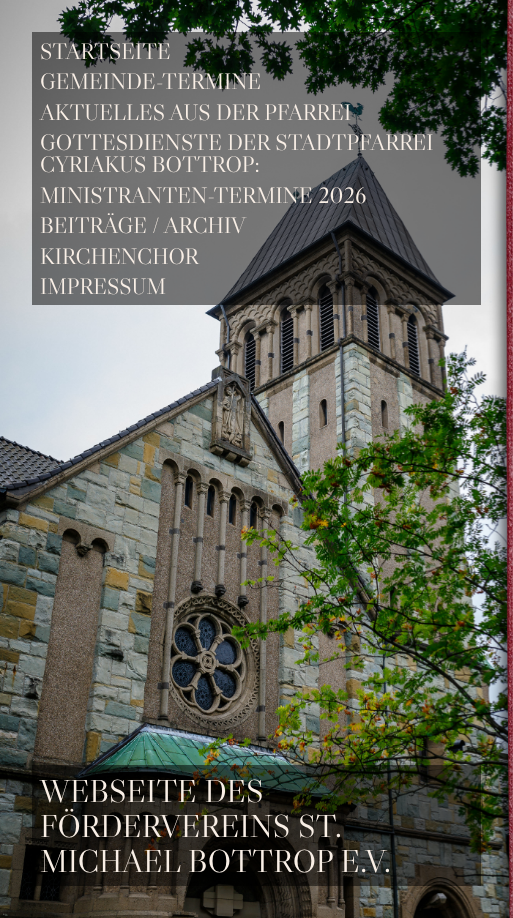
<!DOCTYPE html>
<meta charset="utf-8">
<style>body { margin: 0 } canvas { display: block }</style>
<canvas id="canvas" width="513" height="918"></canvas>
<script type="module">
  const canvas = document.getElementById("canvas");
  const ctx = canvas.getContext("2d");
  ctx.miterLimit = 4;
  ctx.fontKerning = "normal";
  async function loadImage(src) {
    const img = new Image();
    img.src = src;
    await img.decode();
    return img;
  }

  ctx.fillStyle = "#ffffff";
  ctx.fillRect(0, 0, 513, 918);
  ctx.drawImage(await loadImage("img1.png"), 0, 0, 513, 918);
  ctx.fillStyle = "rgba(0, 0, 0, 0.5)";
  ctx.fillRect(32, 32, 449, 273);
  ctx.font = "22.4px Libre Caslon Display";
  ctx.fillStyle = "#f9efe6";
  ctx.fillText("STARTSEITE", 40, 59);
  ctx.fillText("GEMEINDE-TERMINE", 40, 89);
  ctx.fillText("AKTUELLES AUS DER PFARREI", 40, 120);
  ctx.fillText("GOTTESDIENSTE DER STADTPFARREI", 40, 150);
  ctx.fillText("CYRIAKUS BOTTROP:", 40, 172);
  ctx.fillText("MINISTRANTEN-TERMINE 2026", 40, 203);
  ctx.fillText("BEITRÄGE / ARCHIV", 40, 233);
  ctx.fillText("KIRCHENCHOR", 40, 264);
  ctx.fillText("IMPRESSUM", 40, 294);
  ctx.fillStyle = "rgba(0, 0, 0, 0.5)";
  ctx.fillRect(32, 765, 449, 121);
  ctx.font = "31.75px Libre Caslon Display";
  ctx.fillStyle = "#f9efe6";
  ctx.fillText("WEBSEITE DES", 40, 802);
  ctx.fillText("FÖRDERVEREINS ST.", 40, 837);
  ctx.fillText("MICHAEL BOTTROP E.V.", 40, 872);
</script>
